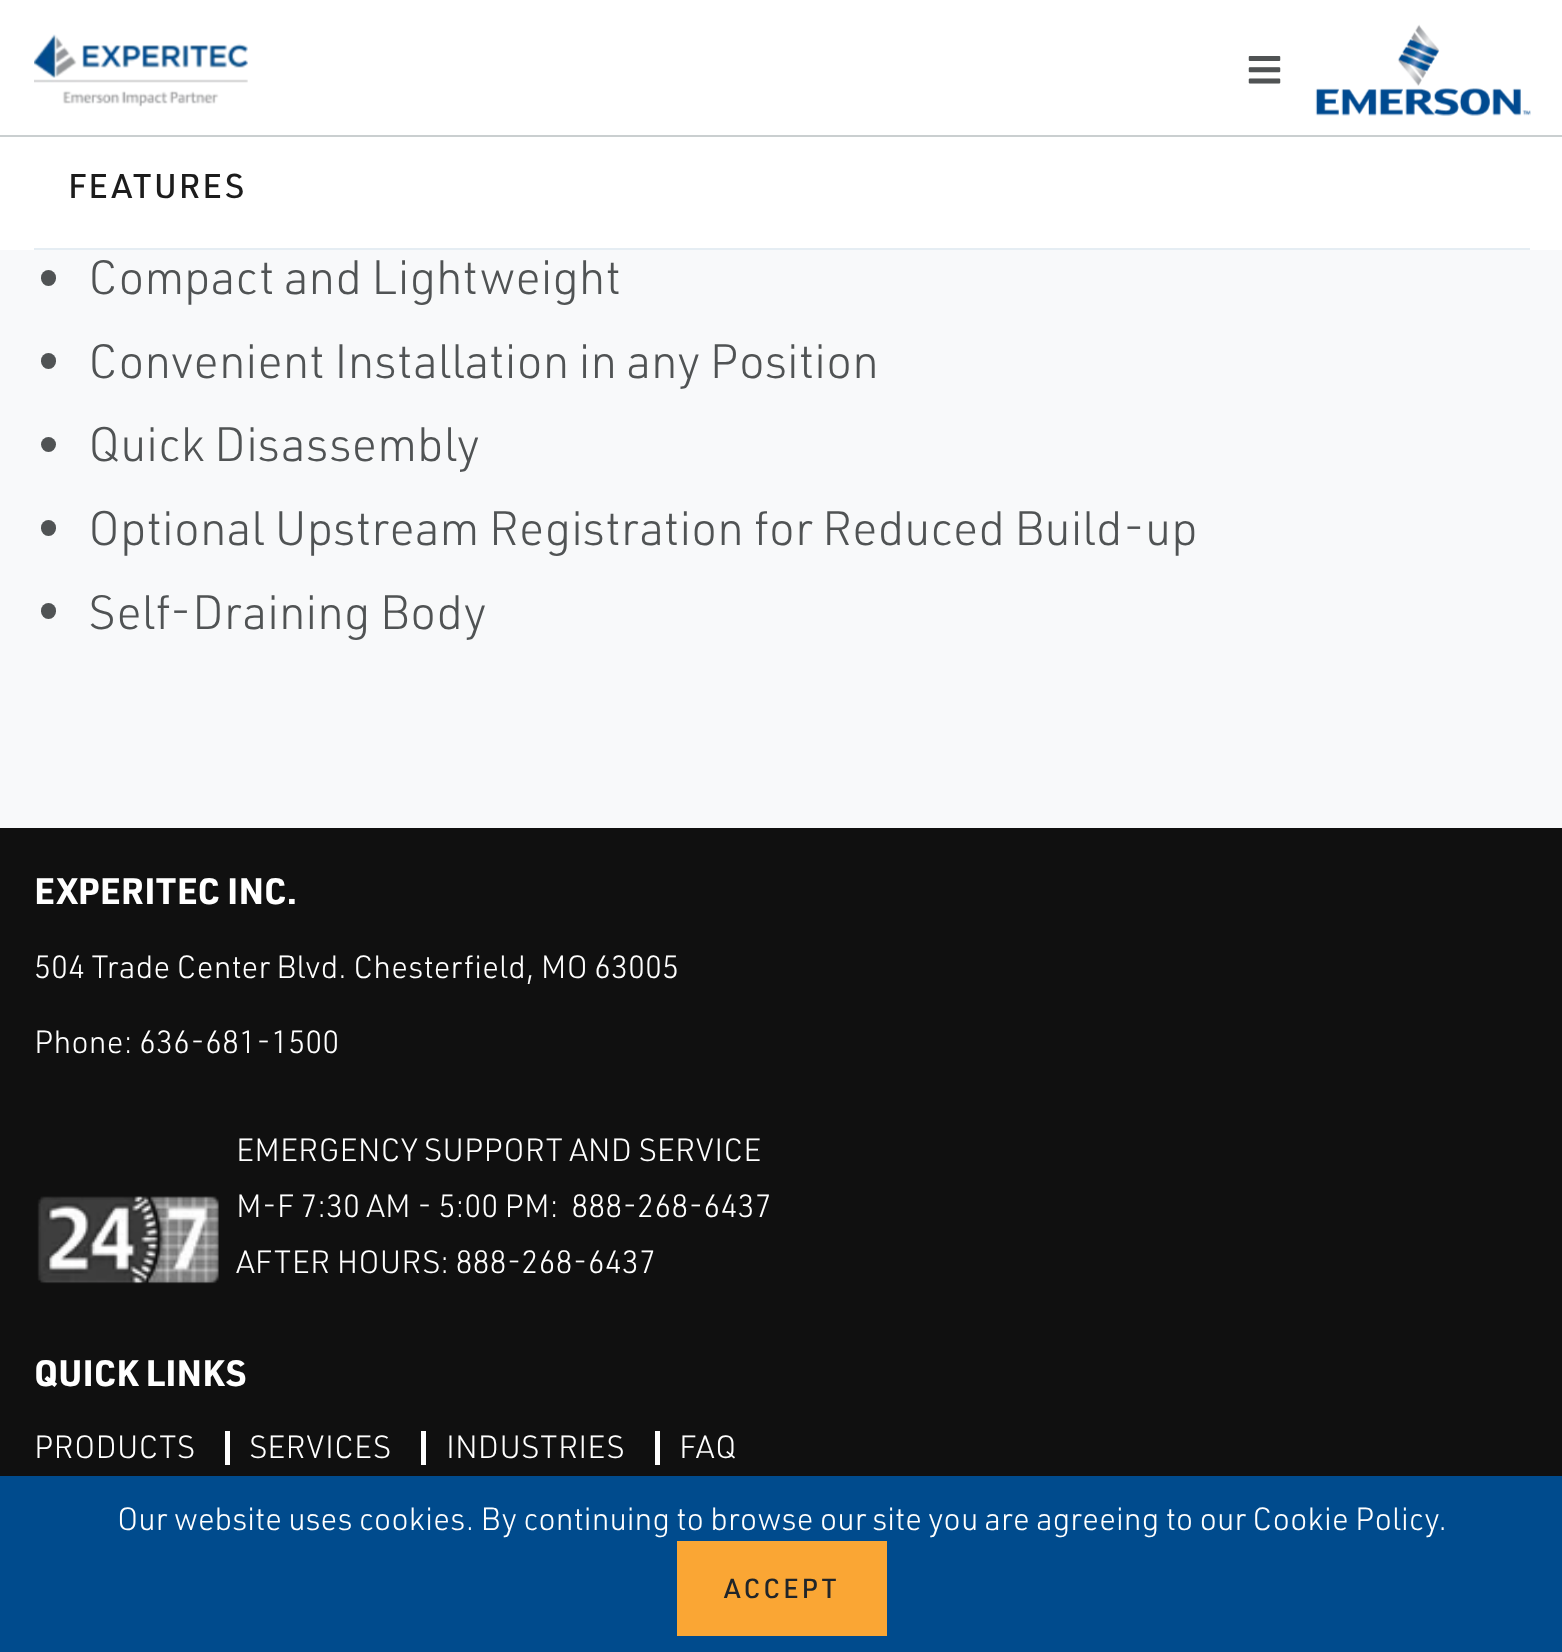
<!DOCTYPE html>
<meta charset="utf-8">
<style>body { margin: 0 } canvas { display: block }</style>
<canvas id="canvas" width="1562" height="1652"></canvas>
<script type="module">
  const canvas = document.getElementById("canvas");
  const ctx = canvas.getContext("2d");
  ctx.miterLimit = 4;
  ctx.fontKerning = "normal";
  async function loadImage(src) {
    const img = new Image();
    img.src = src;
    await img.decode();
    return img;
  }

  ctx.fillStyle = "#101010";
  ctx.fillRect(0, 0, 1562, 1652);
  ctx.fillStyle = "#ffffff";
  ctx.fillRect(0, 0, 1562, 135);
  ctx.fillStyle = "#cacfd0";
  ctx.fillRect(0, 135, 1562, 2);
  ctx.drawImage(await loadImage("img1.png"), 34, 34, 214, 73);
  ctx.drawImage(await loadImage("img2.png"), 1248, 56, 33, 28);
  ctx.drawImage(await loadImage("img3.png"), 1315, 24, 216, 92);
  ctx.fillStyle = "#ffffff";
  ctx.fillRect(0, 137, 1562, 113);
  ctx.fillStyle = "#e5edf3";
  ctx.fillRect(34, 248, 1496, 2);
  ctx.letterSpacing = "1.75px";
  ctx.font = "500 33.75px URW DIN";
  ctx.fillStyle = "#1c1c1c";
  ctx.fillText("FEATURES", 68, 198);
  ctx.fillStyle = "#f8f9fa";
  ctx.fillRect(0, 250, 1562, 578);
  ctx.fillStyle = "#505354";
  ctx.beginPath();
  ctx.roundRect(41, 270, 15, 16, 7.5);
  ctx.fill();
  ctx.letterSpacing = "0px";
  ctx.font = "300 47.25px URW DIN";
  ctx.fillText("Compact and Lightweight", 88, 294);
  ctx.beginPath();
  ctx.roundRect(41, 353, 15, 16, 7.5);
  ctx.fill();
  ctx.fillText("Convenient Installation in any Position", 88, 378);
  ctx.beginPath();
  ctx.arc(48.5, 444.5, 7.5, 0, Math.PI * 2);
  ctx.fill();
  ctx.fillText("Quick Disassembly", 88, 461);
  ctx.beginPath();
  ctx.roundRect(41, 520, 15, 16, 7.5);
  ctx.fill();
  ctx.fillText("Optional Upstream Registration for Reduced Build-up", 88, 545);
  ctx.beginPath();
  ctx.roundRect(41, 603, 15, 16, 7.5);
  ctx.fill();
  ctx.fillText("Self-Draining Body", 88, 629);
  ctx.fillStyle = "#004b8d";
  ctx.fillRect(0, 1476, 1562, 176);
  ctx.font = "300 31.5px URW DIN";
  ctx.fillStyle = "#ffffff";
  ctx.fillText("Our website uses cookies. By continuing to browse our site you are agreeing to our Cookie Policy.", 117, 1530);
  ctx.fillStyle = "#faa634";
  ctx.fillRect(677, 1541, 210, 95);
  ctx.letterSpacing = "2.75px";
  ctx.font = "500 27px URW DIN";
  ctx.fillStyle = "#212529";
  ctx.fillText("ACCEPT", 724, 1598);
  ctx.letterSpacing = "0px";
  ctx.font = "bold 36px URW DIN";
  ctx.fillStyle = "#ffffff";
  ctx.fillText("EXPERITEC INC.", 34, 904);
  ctx.font = "300 31.5px URW DIN";
  ctx.fillText("504 Trade Center Blvd. Chesterfield, MO 63005", 34, 978);
  ctx.fillText("Phone: 636-681-1500", 34, 1053);
  ctx.fillText("EMERGENCY SUPPORT AND SERVICE", 236, 1161);
  ctx.drawImage(await loadImage("img4.png"), 37, 1196, 182, 88);
  ctx.fillText("M-F 7:30 AM - 5:00 PM:  888-268-6437", 236, 1217);
  ctx.fillText("AFTER HOURS: 888-268-6437", 236, 1273);
  ctx.font = "bold 36px URW DIN";
  ctx.fillText("QUICK LINKS", 34, 1386);
  ctx.font = "300 31.5px URW DIN";
  ctx.fillText("PRODUCTS", 34, 1458);
  ctx.fillRect(225, 1431, 5, 34);
  ctx.fillText("SERVICES", 249, 1458);
  ctx.fillRect(421, 1431, 5, 34);
  ctx.fillText("INDUSTRIES", 446, 1458);
  ctx.fillRect(655, 1431, 5, 34);
  ctx.fillText("FAQ", 679, 1458);
</script>
